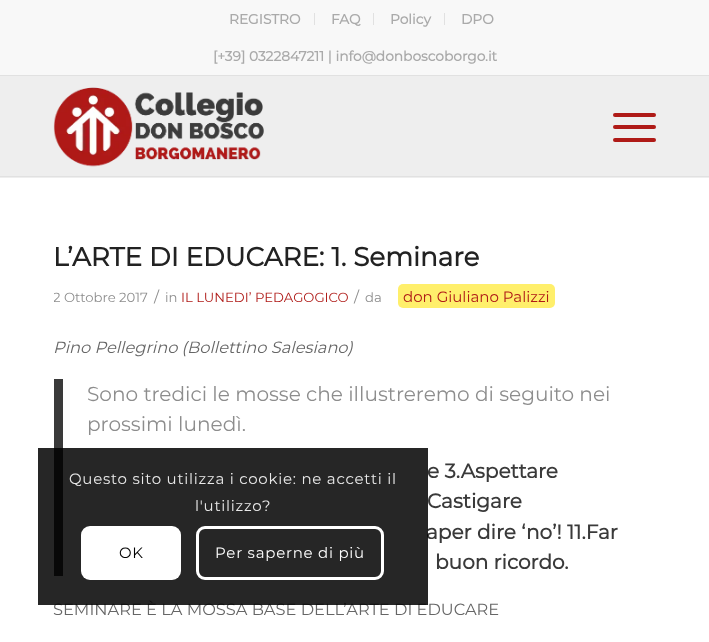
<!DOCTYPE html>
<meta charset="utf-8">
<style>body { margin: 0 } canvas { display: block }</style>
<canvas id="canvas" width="709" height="642"></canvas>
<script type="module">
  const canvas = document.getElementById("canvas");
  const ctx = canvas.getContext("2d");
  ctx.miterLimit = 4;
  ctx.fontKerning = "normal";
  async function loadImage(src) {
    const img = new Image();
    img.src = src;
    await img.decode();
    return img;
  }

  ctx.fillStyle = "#ffffff";
  ctx.fillRect(0, 0, 709, 642);
  ctx.fillStyle = "#f8f8f8";
  ctx.fillRect(0, 0, 709, 75);
  ctx.fillStyle = "#e1e1e1";
  ctx.fillRect(0, 75, 709, 1);
  ctx.fillRect(314, 13, 1, 12);
  ctx.font = "bold 13.75px Montserrat";
  ctx.fillStyle = "#aaaaaa";
  ctx.fillText("REGISTRO", 229, 24);
  ctx.fillStyle = "#e1e1e1";
  ctx.fillRect(373, 13, 1, 12);
  ctx.fillStyle = "#aaaaaa";
  ctx.fillText("FAQ", 331, 24);
  ctx.fillStyle = "#e1e1e1";
  ctx.fillRect(444, 13, 1, 12);
  ctx.fillStyle = "#aaaaaa";
  ctx.fillText("Policy", 390, 24);
  ctx.fillText("DPO", 461, 24);
  ctx.fillText("[+39] 0322847211 | info@donboscoborgo.it", 213, 61);
  ctx.fillStyle = "#eeeeee";
  ctx.fillRect(0, 76, 709, 102);
  ctx.fillStyle = "#e1e1e1";
  ctx.fillRect(0, 176, 709, 1);
  ctx.drawImage(await loadImage("img1.png"), 53, 87, 211, 80);
  ctx.fillStyle = "#af1a17";
  ctx.beginPath();
  ctx.roundRect(613, 125, 43, 4, 2);
  ctx.fill();
  ctx.beginPath();
  ctx.roundRect(613, 113, 43, 4, 2);
  ctx.fill();
  ctx.beginPath();
  ctx.roundRect(613, 138, 43, 4, 2);
  ctx.fill();
  ctx.font = "bold 26.25px Montserrat";
  ctx.fillStyle = "#222222";
  ctx.fillText("L’ARTE DI EDUCARE: 1. Seminare", 53, 266);
  ctx.save();
  ctx.beginPath();
  ctx.rect(54, 240, 602, 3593);
  ctx.clip();
  ctx.font = "100 13.2px Montserrat";
  ctx.fillStyle = "#8d8d8d";
  ctx.fillText("2 Ottobre 2017", 53, 302);
  ctx.restore();
  ctx.font = "100 15px Montserrat";
  ctx.fillStyle = "#8d8d8d";
  ctx.fillText("/", 154, 302);
  ctx.font = "100 13.2px Montserrat";
  ctx.fillText("in", 165, 302);
  ctx.fillStyle = "#af1a17";
  ctx.fillText("IL LUNEDI’ PEDAGOGICO", 181, 302);
  ctx.font = "100 15px Montserrat";
  ctx.fillStyle = "#8d8d8d";
  ctx.fillText("/", 354, 302);
  ctx.font = "100 13.2px Montserrat";
  ctx.fillText("da", 365, 302);
  ctx.fillStyle = "#ffef6b";
  ctx.beginPath();
  ctx.roundRect(398, 284, 157, 24, 5);
  ctx.fill();
  ctx.font = "100 15px Montserrat";
  ctx.fillStyle = "#af1a17";
  ctx.fillText("don Giuliano Palizzi", 403, 302);
  ctx.font = "italic 100 16.25px Montserrat";
  ctx.fillStyle = "#666666";
  ctx.fillText("Pino Pellegrino (Bollettino Salesiano)", 53, 353);
  ctx.fillStyle = "#3a3a3a";
  ctx.fillRect(54, 379, 9, 197);
  ctx.font = "100 20.1px Montserrat";
  ctx.fillStyle = "#8d8d8d";
  ctx.fillText("Sono tredici le mosse che illustreremo di seguito nei", 87, 401);
  ctx.fillText("prossimi lunedì.", 87, 431);
  ctx.font = "bold 20.1px Montserrat";
  ctx.fillStyle = "#3a3a3a";
  ctx.fillText("e 3.Aspettare", 427, 478);
  ctx.fillText("Castigare", 427, 508);
  ctx.fillText("aper dire ‘no’! 11.Far", 426, 539);
  ctx.fillText("buon ricordo.", 435, 569);
  ctx.font = "100 16.25px Montserrat";
  ctx.fillStyle = "#666666";
  ctx.fillText("SEMINARE È LA MOSSA BASE DELL’ARTE DI EDUCARE", 53, 615);
  ctx.fillStyle = "rgba(0, 0, 0, 0.85)";
  ctx.fillRect(38, 448, 390, 157);
  ctx.letterSpacing = "0.75px";
  ctx.font = "100 15px Montserrat";
  ctx.fillStyle = "#e9e9e9";
  ctx.fillText("Questo sito utilizza i cookie: ne accetti il", 69, 484);
  ctx.fillText("l'utilizzo?", 195, 511);
  ctx.fillStyle = "#ffffff";
  ctx.beginPath();
  ctx.roundRect(81, 526, 100, 54, 9);
  ctx.fill();
  ctx.fillStyle = "#000000";
  ctx.fillText("OK", 119, 558);
  ctx.beginPath();
  ctx.roundRect(197.5, 527.5, 185, 51, 7.5);
  ctx.strokeStyle = "#ffffff";
  ctx.lineWidth = 3;
  ctx.stroke();
  ctx.fillStyle = "#ffffff";
  ctx.fillText("Per saperne di più", 215, 558);
</script>
